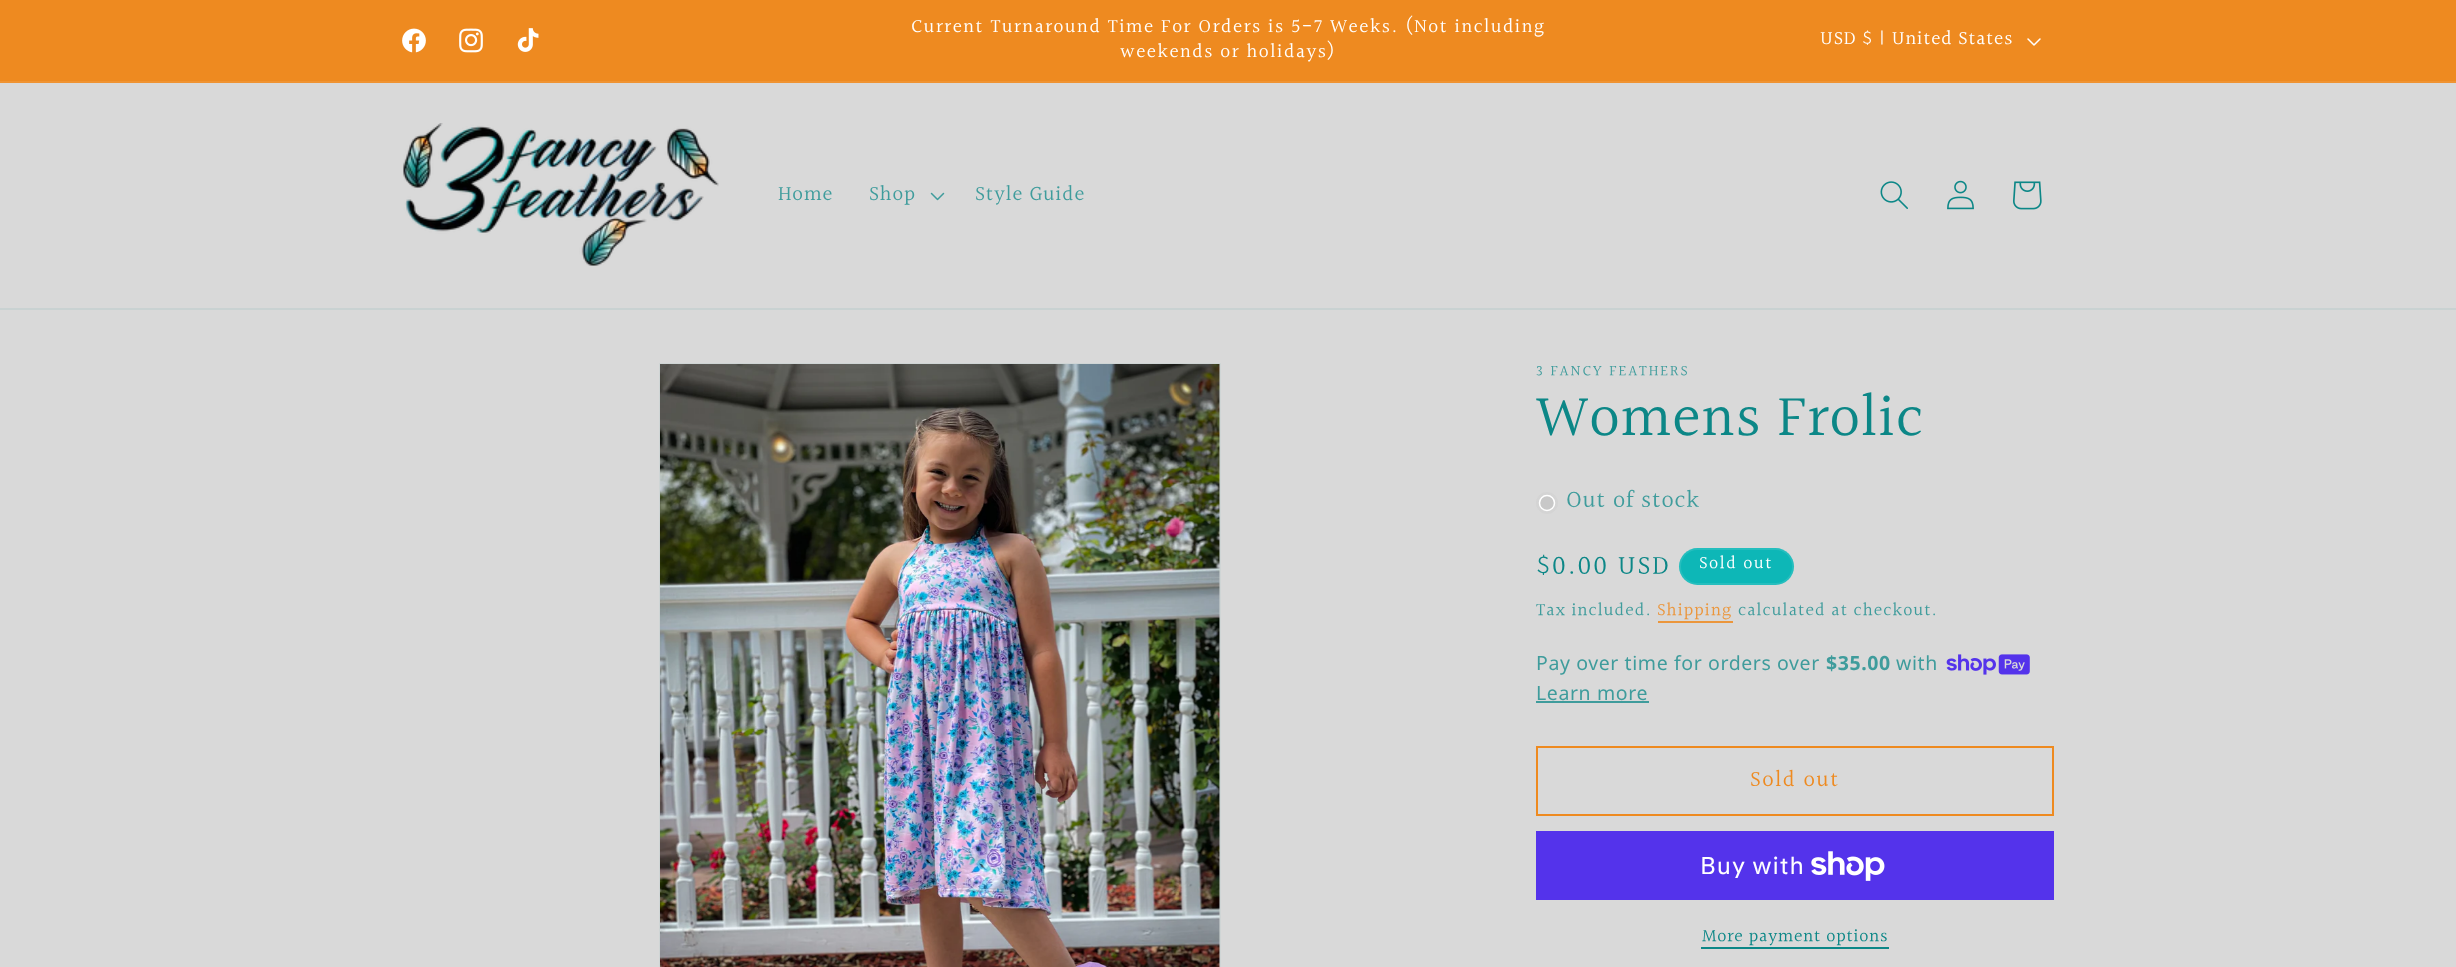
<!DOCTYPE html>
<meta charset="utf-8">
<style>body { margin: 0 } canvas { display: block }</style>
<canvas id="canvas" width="2456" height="967"></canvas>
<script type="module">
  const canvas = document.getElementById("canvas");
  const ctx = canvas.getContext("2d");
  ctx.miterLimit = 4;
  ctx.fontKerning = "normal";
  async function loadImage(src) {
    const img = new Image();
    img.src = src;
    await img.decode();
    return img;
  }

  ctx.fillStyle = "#d9d9d9";
  ctx.fillRect(0, 0, 2456, 967);
  ctx.fillStyle = "#ee8a20";
  ctx.fillRect(0, 0, 2456, 81);
  ctx.fillStyle = "#ef9332";
  ctx.fillRect(0, 81, 2456, 2);
  ctx.drawImage(await loadImage("img1.png"), 402, 28, 24, 25);
  ctx.drawImage(await loadImage("img2.png"), 459, 28, 24, 25);
  ctx.drawImage(await loadImage("img3.png"), 517, 28, 22, 24);
  ctx.letterSpacing = "1.5px";
  ctx.font = "19.5px Halant";
  ctx.fillStyle = "#ffffff";
  ctx.fillText("Current Turnaround Time For Orders is 5-7 Weeks. (Not including", 911, 33);
  ctx.fillText("weekends or holidays)", 1120, 58);
  ctx.letterSpacing = "0.9px";
  ctx.fillText("USD $ | United States", 1820, 45);
  ctx.drawImage(await loadImage("img4.png"), 2027, 38, 14, 8);
  ctx.fillStyle = "#c9d2d2";
  ctx.fillRect(0, 308, 2456, 2);
  ctx.drawImage(await loadImage("img5.png"), 403, 123, 316, 143);
  ctx.font = "21px Halant";
  ctx.fillStyle = "#3f9c9c";
  ctx.fillText("Home", 778, 201);
  ctx.fillText("Shop", 869, 201);
  ctx.drawImage(await loadImage("img6.png"), 930, 192, 15, 9);
  ctx.fillText("Style Guide", 975, 201);
  ctx.drawImage(await loadImage("img7.png"), 1880, 181, 28, 28);
  ctx.drawImage(await loadImage("img8.png"), 1947, 180, 27, 30);
  ctx.drawImage(await loadImage("img9.png"), 2013, 181, 29, 29);
  ctx.strokeStyle = "#cfd5d5";
  ctx.lineWidth = 2;
  ctx.strokeRect(660, 364, 560, 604);
  ctx.drawImage(await loadImage("img10.png"), 660, 364, 560, 603);
  ctx.letterSpacing = "2px";
  ctx.font = "15px Halant";
  ctx.fillText("3 FANCY FEATHERS", 1536, 376);
  ctx.letterSpacing = "0.9px";
  ctx.font = "60px Halant";
  ctx.fillStyle = "#0c8787";
  ctx.fillText("Womens Frolic", 1536, 438);
  ctx.fillStyle = "#d4d4d4";
  ctx.beginPath();
  ctx.arc(1547, 503, 11, 0, Math.PI * 2);
  ctx.fill();
  ctx.fillStyle = "#c8c8c8";
  ctx.beginPath();
  ctx.arc(1547, 503, 7.5, 0, Math.PI * 2);
  ctx.fill();
  ctx.strokeStyle = "#ffffff";
  ctx.lineWidth = 1.5;
  ctx.stroke();
  ctx.font = "24px Halant";
  ctx.fillStyle = "#3f9c9c";
  ctx.fillText("Out of stock", 1566, 508);
  ctx.letterSpacing = "2px";
  ctx.font = "27px Halant";
  ctx.fillStyle = "#0c8787";
  ctx.fillText("$0.00 USD", 1536, 575);
  ctx.fillStyle = "#0db7b7";
  ctx.beginPath();
  ctx.roundRect(1679, 548, 115, 37, 18.5);
  ctx.fill();
  ctx.beginPath();
  ctx.roundRect(1680, 549, 113, 35, 17.5);
  ctx.strokeStyle = "rgba(255, 255, 255, 0.1)";
  ctx.lineWidth = 2;
  ctx.stroke();
  ctx.letterSpacing = "1.5px";
  ctx.font = "18px Halant";
  ctx.fillStyle = "#ffffff";
  ctx.fillText("Sold out", 1699, 569);
  ctx.letterSpacing = "1.05px";
  ctx.fillStyle = "#3f9c9c";
  ctx.fillText("Tax included.", 1536, 616);
  ctx.fillStyle = "#eb963c";
  ctx.fillText("Shipping", 1657, 616);
  ctx.fillRect(1658, 621, 75, 2);
  ctx.fillStyle = "#3f9c9c";
  ctx.fillText("calculated at checkout.", 1738, 616);
  ctx.letterSpacing = "0.6px";
  ctx.font = "19.5px Noto Sans";
  ctx.fillText("Pay over time for orders over", 1536, 670);
  ctx.font = "bold 19.5px Noto Sans";
  ctx.fillText("$35.00", 1826, 670);
  ctx.font = "19.5px Noto Sans";
  ctx.fillText("with", 1896, 670);
  ctx.drawImage(await loadImage("img11.png"), 1946, 654, 84, 21);
  ctx.fillText("Learn more", 1536, 700);
  ctx.fillRect(1536, 701, 113, 2);
  ctx.strokeStyle = "#ee8a20";
  ctx.strokeRect(1537, 747, 516, 68);
  ctx.letterSpacing = "1.5px";
  ctx.font = "22.5px Halant";
  ctx.fillStyle = "#ee8a20";
  ctx.fillText("Sold out", 1750, 787);
  ctx.fillStyle = "#5433eb";
  ctx.fillRect(1536, 831, 518, 69);
  ctx.letterSpacing = "0.9px";
  ctx.font = "24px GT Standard";
  ctx.fillStyle = "#ffffff";
  ctx.fillText("Buy with", 1700, 874);
  ctx.drawImage(await loadImage("img12.png"), 1811, 851, 74, 30);
  ctx.letterSpacing = "0.75px";
  ctx.font = "18px Halant";
  ctx.fillStyle = "#0c8787";
  ctx.fillText("More payment options", 1702, 942);
  ctx.fillRect(1701, 947, 188, 2);
</script>
